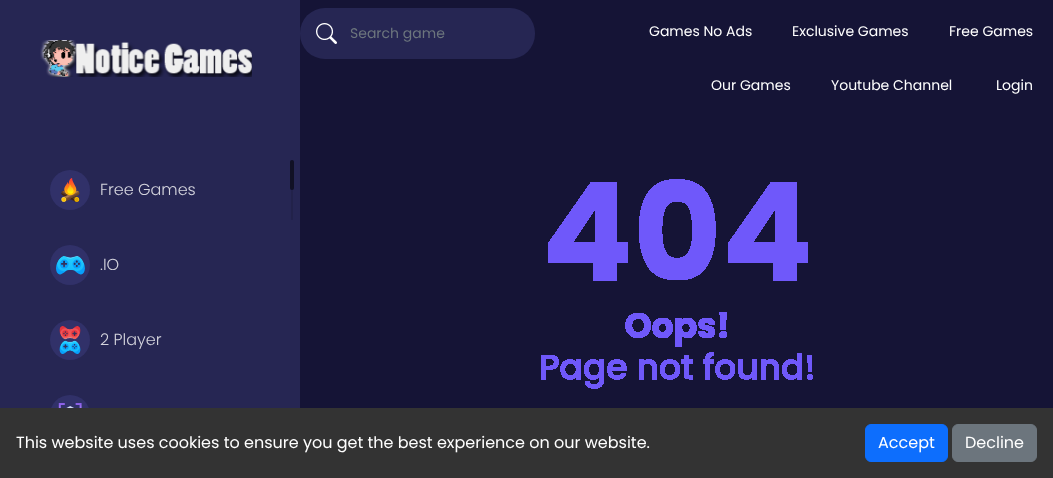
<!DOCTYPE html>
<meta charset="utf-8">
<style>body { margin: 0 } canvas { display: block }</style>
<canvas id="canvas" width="1053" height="478"></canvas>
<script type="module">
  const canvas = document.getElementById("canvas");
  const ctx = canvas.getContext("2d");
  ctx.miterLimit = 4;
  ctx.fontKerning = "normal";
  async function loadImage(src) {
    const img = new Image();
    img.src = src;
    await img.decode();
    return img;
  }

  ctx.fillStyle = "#151436";
  ctx.fillRect(0, 0, 1053, 478);
  ctx.fillStyle = "#262653";
  ctx.beginPath();
  ctx.roundRect(300, 8, 235, 51, 25);
  ctx.fill();
  ctx.drawImage(await loadImage("img1.png"), 316, 23, 21, 21);
  ctx.font = "14px Poppins";
  ctx.fillStyle = "#6c757d";
  ctx.fillText("Search game", 350, 38);
  ctx.fillStyle = "#ffffff";
  ctx.fillText("Games No Ads", 649, 36);
  ctx.fillText("Exclusive Games", 792, 36);
  ctx.fillText("Free Games", 949, 36);
  ctx.fillText("Our Games", 711, 90);
  ctx.fillText("Youtube Channel", 831, 90);
  ctx.fillText("Login", 996, 90);
  ctx.drawImage(await loadImage("img2.png"), 541, 179, 272, 210);
  ctx.fillStyle = "#262653";
  ctx.fillRect(0, 0, 300, 408);
  ctx.drawImage(await loadImage("img3.png"), 40, 40, 212, 37);
  ctx.fillStyle = "#313169";
  ctx.beginPath();
  ctx.arc(70, 190, 20, 0, Math.PI * 2);
  ctx.fill();
  ctx.drawImage(await loadImage("img4.png"), 61, 178, 19, 24);
  ctx.font = "300 16px Poppins";
  ctx.fillStyle = "#d4d4dd";
  ctx.fillText("Free Games", 100, 195);
  ctx.fillStyle = "#313169";
  ctx.beginPath();
  ctx.arc(70, 265, 20, 0, Math.PI * 2);
  ctx.fill();
  ctx.drawImage(await loadImage("img5.png"), 56, 256, 29, 19);
  ctx.fillStyle = "#d4d4dd";
  ctx.fillText(".IO", 100, 270);
  ctx.fillStyle = "#313169";
  ctx.beginPath();
  ctx.arc(70, 340, 20, 0, Math.PI * 2);
  ctx.fill();
  ctx.drawImage(await loadImage("img6.png"), 59, 326, 22, 28);
  ctx.fillStyle = "#d4d4dd";
  ctx.fillText("2 Player", 100, 345);
  ctx.fillStyle = "#313169";
  ctx.beginPath();
  ctx.arc(70, 415, 20, 0, Math.PI * 2);
  ctx.fill();
  ctx.drawImage(await loadImage("img7.png"), 58, 403, 24, 5);
  ctx.fillStyle = "#111125";
  ctx.beginPath();
  ctx.roundRect(290, 160, 4, 30, 2);
  ctx.fill();
  ctx.fillStyle = "#22224a";
  ctx.beginPath();
  ctx.roundRect(291, 190, 2, 30, 1);
  ctx.fill();
  ctx.fillStyle = "#333333";
  ctx.fillRect(0, 408, 1053, 70);
  ctx.font = "16px Poppins";
  ctx.fillStyle = "#ffffff";
  ctx.fillText("This website uses cookies to ensure you get the best experience on our website.", 16, 448);
  ctx.fillStyle = "#0d6efd";
  ctx.beginPath();
  ctx.roundRect(865.5, 424.5, 82, 37, 5.5);
  ctx.fill();
  ctx.strokeStyle = "#0d6efd";
  ctx.stroke();
  ctx.fillStyle = "#ffffff";
  ctx.fillText("Accept", 878, 448);
  ctx.fillStyle = "#6c757d";
  ctx.beginPath();
  ctx.roundRect(952.5, 424.5, 84, 37, 5.5);
  ctx.fill();
  ctx.strokeStyle = "#6c757d";
  ctx.stroke();
  ctx.fillStyle = "#ffffff";
  ctx.fillText("Decline", 965, 448);
</script>
